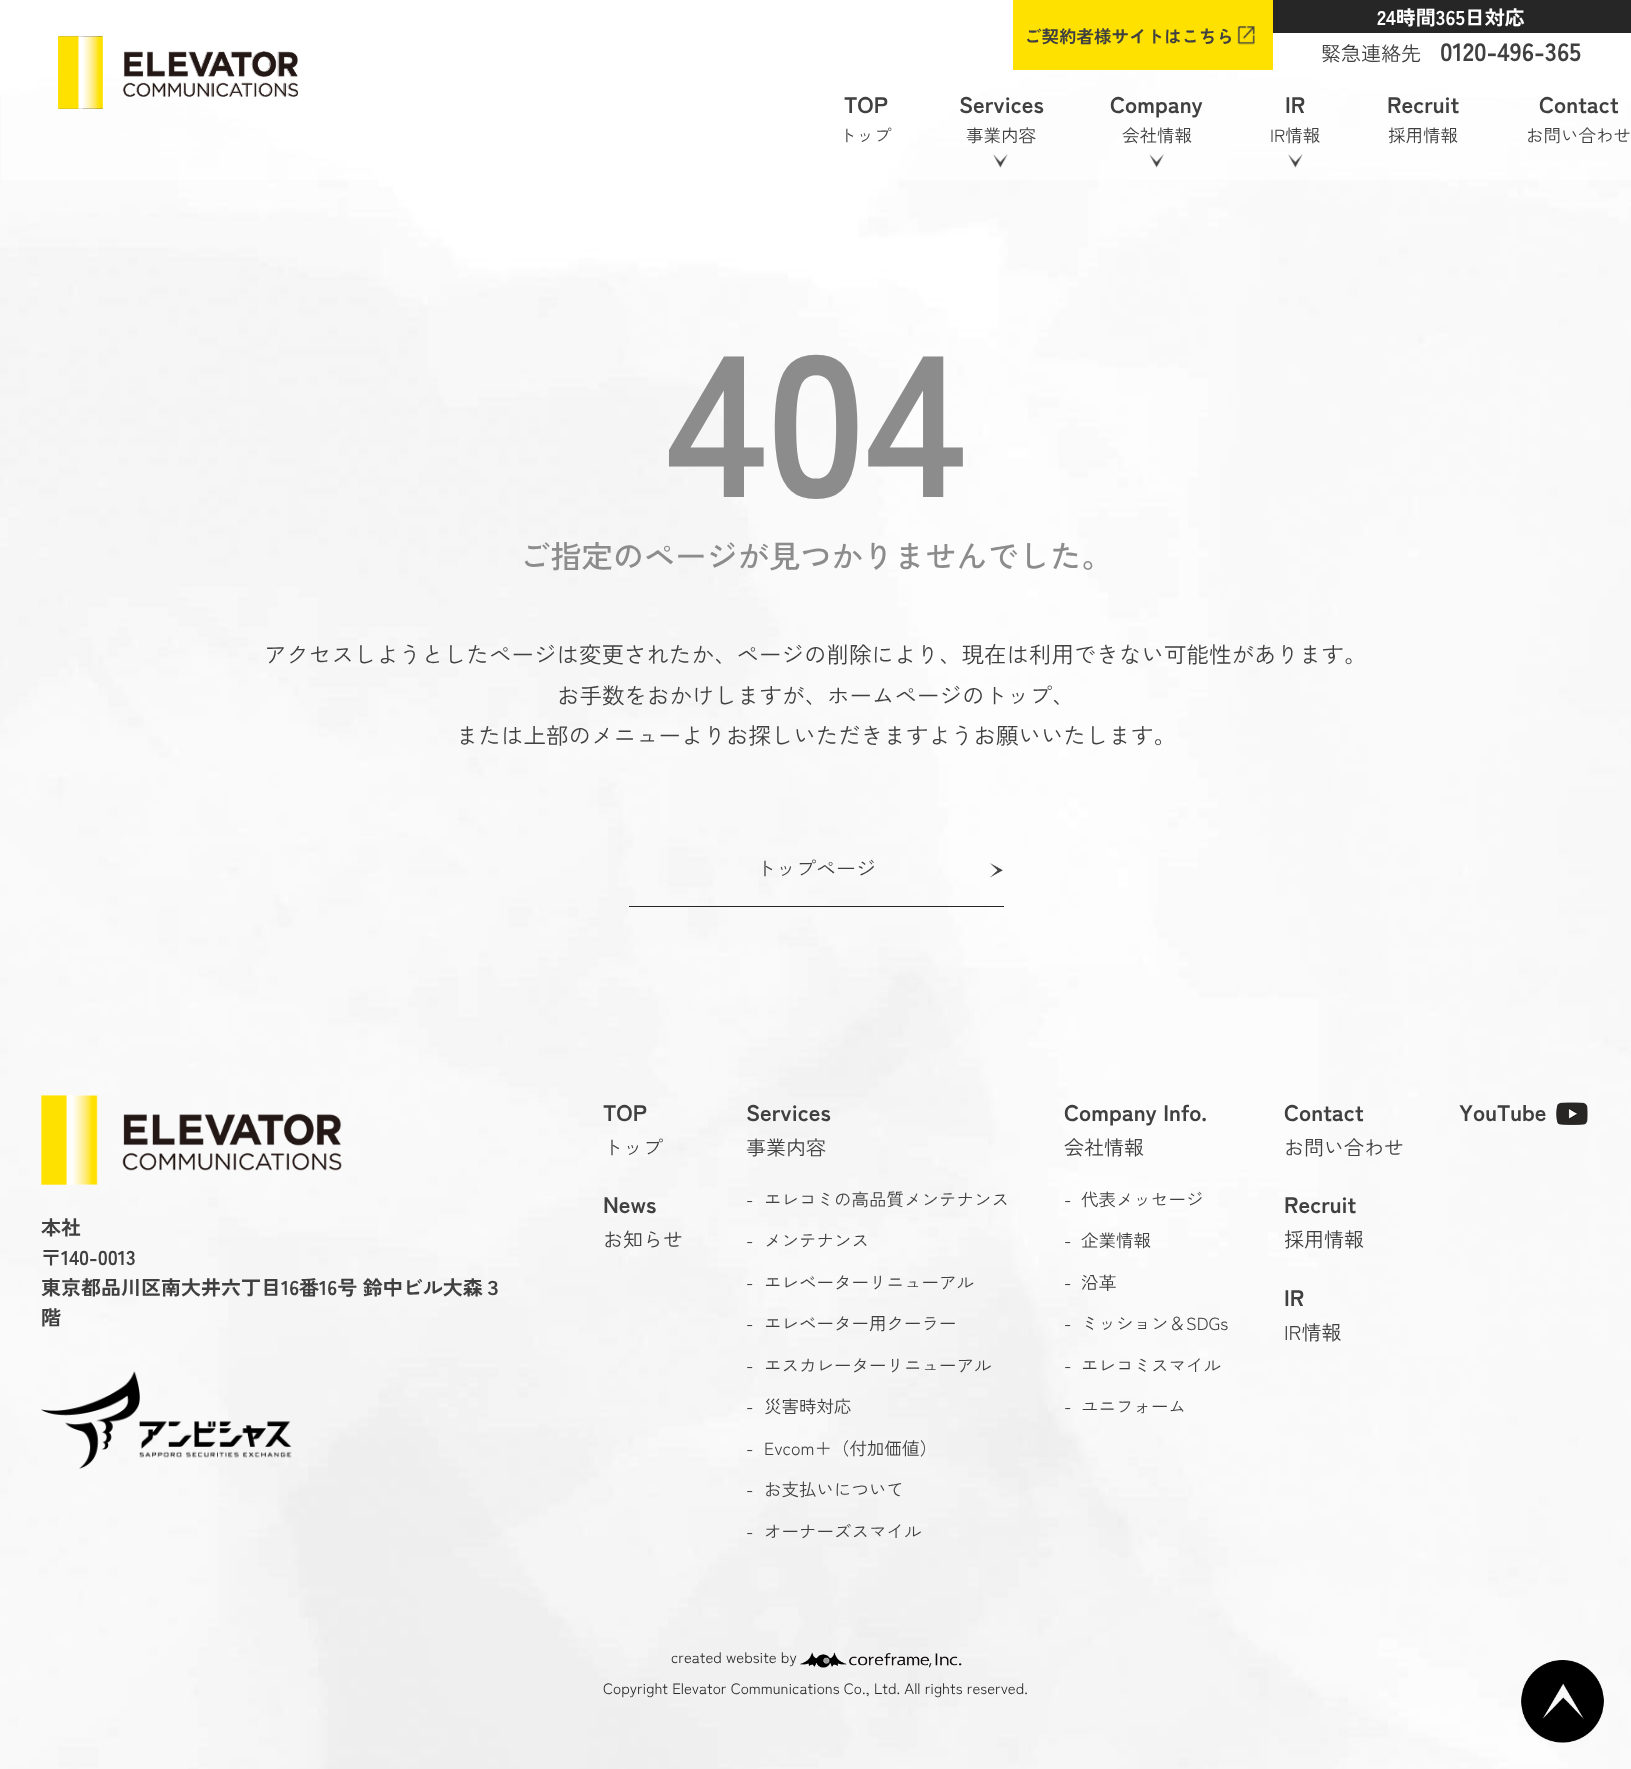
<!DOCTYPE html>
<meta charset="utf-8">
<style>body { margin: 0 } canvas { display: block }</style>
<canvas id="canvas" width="1631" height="1769"></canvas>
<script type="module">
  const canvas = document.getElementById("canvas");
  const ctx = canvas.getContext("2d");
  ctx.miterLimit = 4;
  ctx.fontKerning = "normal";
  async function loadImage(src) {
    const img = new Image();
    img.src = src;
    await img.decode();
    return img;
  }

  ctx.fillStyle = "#ffffff";
  ctx.fillRect(0, 0, 1631, 1769);
  ctx.drawImage(await loadImage("img1.png"), 0, 67, 1631, 1702);
  ctx.fillStyle = "rgba(255, 255, 255, 0.6)";
  ctx.fillRect(1, 67, 1630, 113);
  ctx.drawImage(await loadImage("img2.png"), 58, 36, 239, 73);
  ctx.drawImage(await loadImage("img3.png"), 58, 36, 240, 73);
  ctx.fillStyle = "#ffe100";
  ctx.fillRect(1013, 0, 260, 70);
  ctx.font = "bold 17.5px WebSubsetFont";
  ctx.fillStyle = "#404040";
  ctx.fillText("ご契約者様サイトはこちら", 1024, 43);
  ctx.drawImage(await loadImage("img4.png"), 1237, 26, 18, 19);
  ctx.fillStyle = "#262626";
  ctx.fillRect(1273, 0, 358, 33);
  ctx.font = "bold 20px WebSubsetFont";
  ctx.fillStyle = "#ffffff";
  ctx.fillText("24時間365日対応", 1377, 25);
  ctx.font = "20px WebSubsetFont";
  ctx.fillStyle = "#404040";
  ctx.fillText("緊急連絡先", 1321, 61);
  ctx.font = "bold 25px WebSubsetFont";
  ctx.fillText("0120-496-365", 1440, 61);
  ctx.font = "bold 22.5px WebSubsetFont";
  ctx.fillText("TOP", 844, 113);
  ctx.font = "17.5px WebSubsetFont";
  ctx.fillText("トップ", 839, 142);
  ctx.font = "bold 22.5px WebSubsetFont";
  ctx.fillText("Services", 959, 113);
  ctx.font = "17.5px WebSubsetFont";
  ctx.fillText("事業内容", 966, 142);
  ctx.drawImage(await loadImage("img5.png"), 993, 154, 15, 14);
  ctx.font = "bold 22.5px WebSubsetFont";
  ctx.fillText("Company", 1110, 113);
  ctx.font = "17.5px WebSubsetFont";
  ctx.fillText("会社情報", 1122, 142);
  ctx.drawImage(await loadImage("img6.png"), 1149, 154, 15, 14);
  ctx.font = "bold 22.5px WebSubsetFont";
  ctx.fillText("IR", 1285, 113);
  ctx.font = "17.5px WebSubsetFont";
  ctx.fillText("IR情報", 1270, 142);
  ctx.drawImage(await loadImage("img7.png"), 1288, 154, 15, 14);
  ctx.font = "bold 22.5px WebSubsetFont";
  ctx.fillText("Recruit", 1387, 113);
  ctx.font = "17.5px WebSubsetFont";
  ctx.fillText("採用情報", 1388, 142);
  ctx.font = "bold 22.5px WebSubsetFont";
  ctx.fillText("Contact", 1539, 113);
  ctx.font = "17.5px WebSubsetFont";
  ctx.fillText("お問い合わせ", 1526, 142);
  ctx.font = "bold 200px WebSubsetFont";
  ctx.fillStyle = "#8c8c8c";
  ctx.fillText("404", 667, 497);
  ctx.font = "500 31.25px WebSubsetFont";
  ctx.fillText("ご指定のページが見つかりませんでした。", 519, 568);
  ctx.font = "22.5px WebSubsetFont";
  ctx.fillStyle = "#404040";
  ctx.fillText("アクセスしようとしたページは変更されたか、ページの削除により、現在は利用できない可能性があります。", 264, 663);
  ctx.fillText("お手数をおかけしますが、ホームページのトップ、", 557, 704);
  ctx.fillText("または上部のメニューよりお探しいただきますようお願いいたします。", 456, 744);
  ctx.fillStyle = "#262626";
  ctx.fillRect(629, 906, 375, 1);
  ctx.font = "20px WebSubsetFont";
  ctx.fillStyle = "#404040";
  ctx.fillText("トップページ", 756, 876);
  ctx.drawImage(await loadImage("img8.png"), 990, 863, 13, 15);
  ctx.drawImage(await loadImage("img9.png"), 41, 1095, 301, 90);
  ctx.font = "bold 20px WebSubsetFont";
  ctx.fillText("本社", 41, 1235);
  ctx.fillText("〒140-0013", 41, 1265);
  ctx.fillText("東京都品川区南大井六丁目16番16号 鈴中ビル大森３", 41, 1295);
  ctx.fillText("階", 41, 1325);
  ctx.drawImage(await loadImage("img10.png"), 41, 1371, 251, 98);
  ctx.font = "bold 22.5px WebSubsetFont";
  ctx.fillText("TOP", 603, 1121);
  ctx.font = "20px WebSubsetFont";
  ctx.fillText("トップ", 603, 1155);
  ctx.font = "bold 22.5px WebSubsetFont";
  ctx.fillText("News", 603, 1213);
  ctx.font = "20px WebSubsetFont";
  ctx.fillText("お知らせ", 603, 1247);
  ctx.font = "bold 22.5px WebSubsetFont";
  ctx.fillText("Services", 746, 1121);
  ctx.font = "20px WebSubsetFont";
  ctx.fillText("事業内容", 746, 1155);
  ctx.font = "17.5px WebSubsetFont";
  ctx.fillText("-", 746, 1206);
  ctx.fillText("エレコミの高品質メンテナンス", 764, 1206);
  ctx.fillText("-", 746, 1247);
  ctx.fillText("メンテナンス", 764, 1247);
  ctx.fillText("-", 746, 1289);
  ctx.fillText("エレベーターリニューアル", 764, 1289);
  ctx.fillText("-", 746, 1330);
  ctx.fillText("エレベーター用クーラー", 764, 1330);
  ctx.fillText("-", 746, 1372);
  ctx.fillText("エスカレーターリニューアル", 764, 1372);
  ctx.fillText("-", 746, 1413);
  ctx.fillText("災害時対応", 764, 1413);
  ctx.fillText("-", 746, 1455);
  ctx.fillText("Evcom＋（付加価値）", 764, 1455);
  ctx.fillText("-", 746, 1496);
  ctx.fillText("お支払いについて", 764, 1496);
  ctx.fillText("-", 746, 1538);
  ctx.fillText("オーナーズスマイル", 764, 1538);
  ctx.font = "bold 22.5px WebSubsetFont";
  ctx.fillText("Company Info.", 1064, 1121);
  ctx.font = "20px WebSubsetFont";
  ctx.fillText("会社情報", 1064, 1155);
  ctx.font = "17.5px WebSubsetFont";
  ctx.fillText("-", 1064, 1206);
  ctx.fillText("代表メッセージ", 1081, 1206);
  ctx.fillText("-", 1064, 1247);
  ctx.fillText("企業情報", 1081, 1247);
  ctx.fillText("-", 1064, 1289);
  ctx.fillText("沿", 1081, 1289);
  ctx.font = "500 17.5px WenQuanYi Zen Hei";
  ctx.fillText("⾰", 1099, 1289);
  ctx.font = "17.5px WebSubsetFont";
  ctx.fillText("-", 1064, 1330);
  ctx.fillText("ミッション＆SDGs", 1081, 1330);
  ctx.fillText("-", 1064, 1372);
  ctx.fillText("エレコミスマイル", 1081, 1372);
  ctx.fillText("-", 1064, 1413);
  ctx.fillText("ユニフォーム", 1081, 1413);
  ctx.font = "bold 22.5px WebSubsetFont";
  ctx.fillText("Contact", 1284, 1121);
  ctx.font = "20px WebSubsetFont";
  ctx.fillText("お問い合わせ", 1284, 1155);
  ctx.font = "bold 22.5px WebSubsetFont";
  ctx.fillText("Recruit", 1284, 1213);
  ctx.font = "20px WebSubsetFont";
  ctx.fillText("採用情報", 1284, 1247);
  ctx.font = "bold 22.5px WebSubsetFont";
  ctx.fillText("IR", 1284, 1306);
  ctx.font = "20px WebSubsetFont";
  ctx.fillText("IR情報", 1284, 1340);
  ctx.font = "bold 22.5px WebSubsetFont";
  ctx.fillText("YouTube", 1459, 1121);
  ctx.drawImage(await loadImage("img11.png"), 1556, 1102, 32, 23);
  ctx.font = "15px WebSubsetFont";
  ctx.fillStyle = "#262626";
  ctx.fillText("created website by", 671, 1663);
  ctx.drawImage(await loadImage("img12.png"), 800, 1652, 162, 16);
  ctx.fillText("Copyright Elevator Communications Co., Ltd. All rights reserved.", 603, 1694);
  ctx.drawImage(await loadImage("img13.png"), 1521, 1660, 83, 83);
</script>
